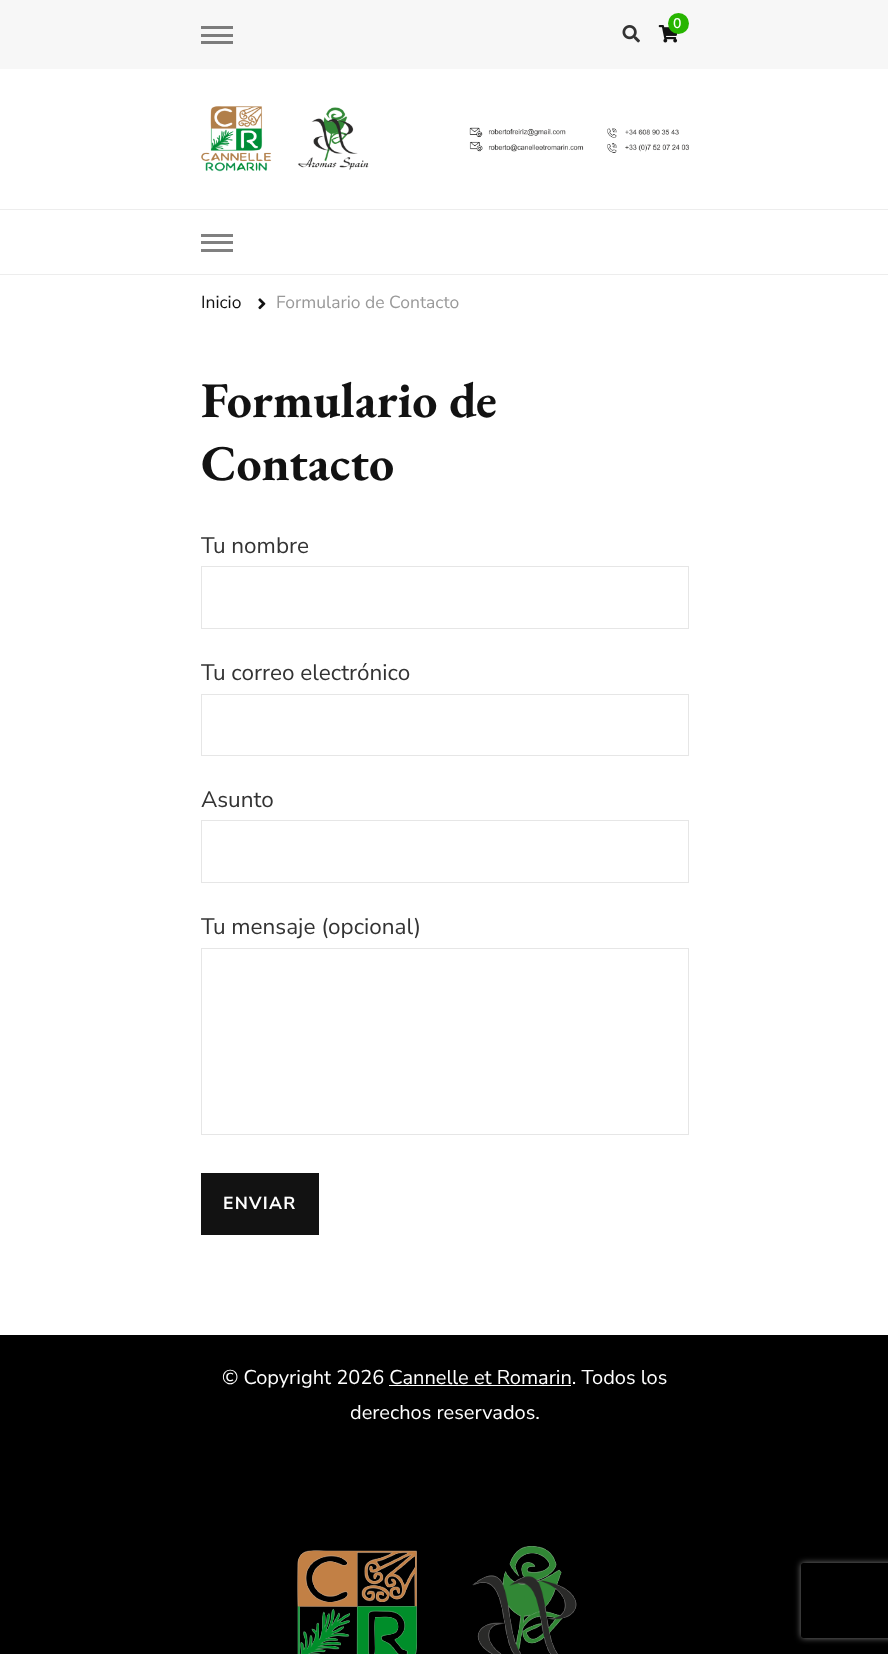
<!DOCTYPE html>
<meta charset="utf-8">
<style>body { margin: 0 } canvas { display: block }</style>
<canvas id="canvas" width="888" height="1654"></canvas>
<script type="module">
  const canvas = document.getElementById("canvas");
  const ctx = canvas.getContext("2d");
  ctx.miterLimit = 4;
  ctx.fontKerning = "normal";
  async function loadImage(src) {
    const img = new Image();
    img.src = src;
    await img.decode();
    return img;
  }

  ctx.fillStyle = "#ffffff";
  ctx.fillRect(0, 0, 888, 1654);
  ctx.fillStyle = "#f7f7f7";
  ctx.fillRect(0, 0, 888, 69);
  ctx.drawImage(await loadImage("img1.png"), 658, 25, 20, 18);
  ctx.fillStyle = "#27b500";
  ctx.beginPath();
  ctx.arc(678.5, 23.5, 10.5, 0, Math.PI * 2);
  ctx.fill();
  ctx.font = "600 14px Nunito Sans";
  ctx.fillStyle = "#ffffff";
  ctx.fillText("0", 673, 28);
  ctx.drawImage(await loadImage("img2.png"), 622, 25, 18, 18);
  ctx.fillStyle = "#7c7c7c";
  ctx.fillRect(201, 26, 32, 3);
  ctx.fillRect(201, 34, 32, 3);
  ctx.fillRect(201, 41, 32, 3);
  ctx.drawImage(await loadImage("img3.png"), 201, 106, 488, 66);
  ctx.fillStyle = "#ededed";
  ctx.fillRect(0, 209, 888, 1);
  ctx.fillRect(0, 274, 888, 1);
  ctx.fillStyle = "#808080";
  ctx.fillRect(201, 234, 32, 3);
  ctx.fillRect(201, 241, 32, 3);
  ctx.fillRect(201, 249, 32, 3);
  ctx.font = "17.5px Nunito Sans";
  ctx.fillStyle = "#121212";
  ctx.fillText("Inicio", 201, 308);
  ctx.drawImage(await loadImage("img4.png"), 258, 298, 8, 12);
  ctx.fillStyle = "#999999";
  ctx.fillText("Formulario de Contacto", 276, 308);
  ctx.font = "bold 50px EB Garamond";
  ctx.fillStyle = "#121212";
  ctx.fillText("Formulario de", 201, 417);
  ctx.fillText("Contacto", 201, 480);
  ctx.font = "22.5px Nunito Sans";
  ctx.fillStyle = "#333333";
  ctx.fillText("Tu nombre", 201, 553);
  ctx.strokeStyle = "#e6e6e6";
  ctx.strokeRect(201.5, 566.5, 487, 62);
  ctx.fillText("Tu correo electrónico", 201, 680);
  ctx.strokeRect(201.5, 694.5, 487, 61);
  ctx.fillText("Asunto", 201, 807);
  ctx.strokeRect(201.5, 820.5, 487, 62);
  ctx.fillText("Tu mensaje (opcional)", 201, 934);
  ctx.strokeRect(201.5, 948.5, 487, 186);
  ctx.fillStyle = "#121212";
  ctx.fillRect(201, 1173, 118, 62);
  ctx.letterSpacing = "1.25px";
  ctx.font = "bold 17.5px Nunito Sans";
  ctx.fillStyle = "#ffffff";
  ctx.fillText("ENVIAR", 223, 1209);
  ctx.fillStyle = "#000000";
  ctx.fillRect(0, 1335, 888, 319);
  ctx.letterSpacing = "0px";
  ctx.font = "20px Nunito Sans";
  ctx.fillStyle = "#ffffff";
  ctx.fillText("© Copyright 2026 Cannelle et Romarin. Todos los", 222, 1384);
  ctx.fillRect(389, 1385, 182, 1);
  ctx.fillText("derechos reservados.", 350, 1419);
  ctx.drawImage(await loadImage("img5.png"), 297, 1546, 280, 108);
  ctx.save();
  ctx.beginPath();
  ctx.moveTo(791, 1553);
  ctx.lineTo(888, 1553);
  ctx.lineTo(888, 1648);
  ctx.lineTo(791, 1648);
  ctx.closePath();
  ctx.moveTo(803.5, 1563);
  ctx.lineTo(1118.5, 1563);
  ctx.bezierCurveTo(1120, 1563, 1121, 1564, 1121, 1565.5);
  ctx.lineTo(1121, 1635.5);
  ctx.bezierCurveTo(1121, 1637, 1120, 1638, 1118.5, 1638);
  ctx.lineTo(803.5, 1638);
  ctx.bezierCurveTo(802, 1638, 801, 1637, 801, 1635.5);
  ctx.lineTo(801, 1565.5);
  ctx.bezierCurveTo(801, 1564, 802, 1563, 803.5, 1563);
  ctx.closePath();
  ctx.clip("evenodd");
  ctx.fillStyle = "#808080";
  ctx.filter = "blur(3px)";
  ctx.beginPath();
  ctx.roundRect(801, 1563, 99, 75, 2.5);
  ctx.fill();
  ctx.filter = "none";
  ctx.restore();
</script>
